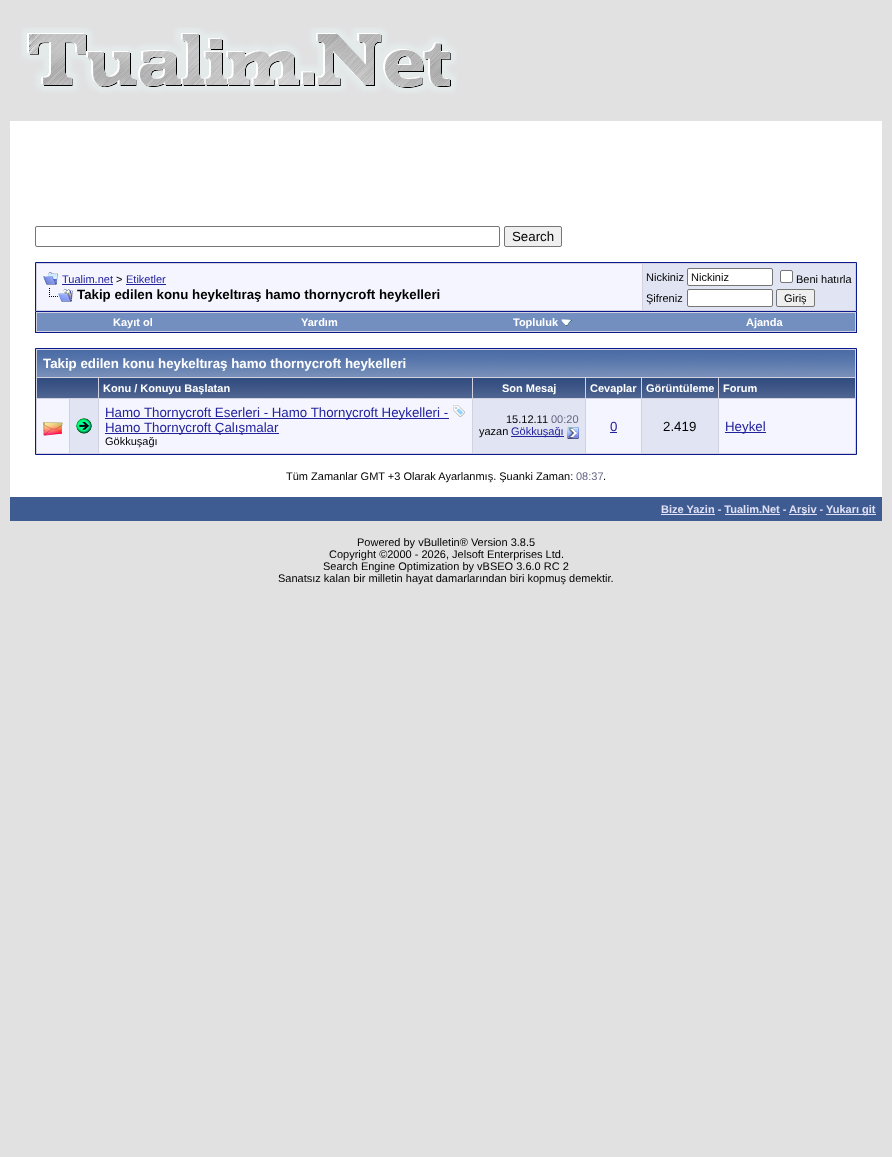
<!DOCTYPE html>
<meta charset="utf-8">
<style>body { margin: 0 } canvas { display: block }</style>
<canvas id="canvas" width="892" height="1157"></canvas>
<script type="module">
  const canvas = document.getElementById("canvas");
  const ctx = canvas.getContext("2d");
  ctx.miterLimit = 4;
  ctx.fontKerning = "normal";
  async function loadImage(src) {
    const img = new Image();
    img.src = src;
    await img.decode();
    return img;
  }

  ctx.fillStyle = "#e1e1e2";
  ctx.fillRect(0, 0, 892, 1157);
  ctx.drawImage(await loadImage("img1.png"), 21, 27, 436, 67);
  ctx.fillStyle = "#ffffff";
  ctx.fillRect(10, 121, 872, 376);
  ctx.beginPath();
  ctx.roundRect(35.5, 226.5, 464, 20, 1.5);
  ctx.strokeStyle = "#767676";
  ctx.stroke();
  ctx.fillStyle = "#efefef";
  ctx.beginPath();
  ctx.roundRect(504.5, 226.5, 57, 20, 1.5);
  ctx.fill();
  ctx.stroke();
  ctx.font = "13.3px Liberation Sans";
  ctx.fillStyle = "#000000";
  ctx.fillText("Search", 512, 241);
  ctx.fillStyle = "#d1d1e1";
  ctx.beginPath();
  ctx.rect(35.5, 262.5, 821, 49);
  ctx.fill();
  ctx.strokeStyle = "#0b198c";
  ctx.stroke();
  ctx.fillStyle = "#f5f5ff";
  ctx.fillRect(37, 264, 605, 46);
  ctx.drawImage(await loadImage("img2.png"), 43, 272, 15, 13);
  ctx.font = "11px Liberation Sans";
  ctx.fillStyle = "#22229c";
  ctx.fillText("Tualim.net", 62, 283);
  ctx.fillRect(62, 284, 51, 1);
  ctx.fillStyle = "#000000";
  ctx.fillText(">", 116, 283);
  ctx.fillStyle = "#22229c";
  ctx.fillText("Etiketler", 126, 283);
  ctx.fillRect(126, 284, 40, 1);
  ctx.drawImage(await loadImage("img3.png"), 49, 288, 24, 14);
  ctx.font = "bold 13.3px Liberation Sans";
  ctx.fillStyle = "#000000";
  ctx.fillText("Takip edilen konu heykeltıraş hamo thornycroft heykelleri", 77, 299);
  ctx.fillStyle = "#e1e4f2";
  ctx.fillRect(643, 264, 212, 46);
  ctx.font = "11px Liberation Sans";
  ctx.fillStyle = "#000000";
  ctx.fillText("Nickiniz", 646, 281);
  ctx.fillStyle = "#ffffff";
  ctx.beginPath();
  ctx.roundRect(687.5, 268.5, 85, 17, 1.5);
  ctx.fill();
  ctx.strokeStyle = "#767676";
  ctx.stroke();
  ctx.fillStyle = "#000000";
  ctx.fillText("Nickiniz", 691, 281);
  ctx.fillStyle = "#ffffff";
  ctx.beginPath();
  ctx.roundRect(780.5, 270.5, 12, 12, 1.5);
  ctx.fill();
  ctx.stroke();
  ctx.fillStyle = "#000000";
  ctx.fillText("Beni hatırla", 796, 283);
  ctx.fillText("Şifreniz", 646, 302);
  ctx.fillStyle = "#ffffff";
  ctx.beginPath();
  ctx.roundRect(687.5, 289.5, 85, 17, 1.5);
  ctx.fill();
  ctx.stroke();
  ctx.fillStyle = "#efefef";
  ctx.beginPath();
  ctx.roundRect(776.5, 289.5, 38, 17, 1.5);
  ctx.fill();
  ctx.stroke();
  ctx.fillStyle = "#000000";
  ctx.fillText("Giriş", 784, 302);
  ctx.fillStyle = "#d1d1e1";
  ctx.fillRect(36, 312, 820, 20);
  ctx.fillStyle = "#0b198c";
  ctx.fillRect(856, 312, 1, 21);
  ctx.fillRect(35, 332, 822, 1);
  ctx.fillRect(35, 312, 1, 21);
  ctx.fillStyle = "#738fbf";
  ctx.fillRect(37, 313, 818, 18);
  ctx.font = "bold 11px Liberation Sans";
  ctx.fillStyle = "#ffffff";
  ctx.fillText("Kayıt ol", 113, 326);
  ctx.fillText("Yardım", 301, 326);
  ctx.fillText("Topluluk", 513, 326);
  ctx.drawImage(await loadImage("img4.png"), 561, 319, 11, 7);
  ctx.fillText("Ajanda", 746, 326);
  ctx.fillStyle = "#d1d1e1";
  ctx.beginPath();
  ctx.rect(35.5, 348.5, 821, 106);
  ctx.fill();
  ctx.strokeStyle = "#0b198c";
  ctx.stroke();
  ctx.drawImage(await loadImage("img5.png"), 37, 350, 818, 27);
  ctx.font = "bold 13.3px Liberation Sans";
  ctx.fillStyle = "#ffffff";
  ctx.fillText("Takip edilen konu heykeltıraş hamo thornycroft heykelleri", 43, 368);
  ctx.drawImage(await loadImage("img6.png"), 37, 378, 61, 20);
  ctx.drawImage(await loadImage("img7.png"), 99, 378, 373, 20);
  ctx.font = "bold 11px Liberation Sans";
  ctx.fillText("Konu / Konuyu Başlatan", 103, 392);
  ctx.drawImage(await loadImage("img8.png"), 473, 378, 112, 20);
  ctx.fillText("Son Mesaj", 502, 392);
  ctx.drawImage(await loadImage("img9.png"), 586, 378, 55, 20);
  ctx.fillText("Cevaplar", 590, 392);
  ctx.drawImage(await loadImage("img10.png"), 642, 378, 76, 20);
  ctx.fillText("Görüntüleme", 646, 392);
  ctx.drawImage(await loadImage("img11.png"), 719, 378, 136, 20);
  ctx.fillText("Forum", 723, 392);
  ctx.fillStyle = "#f5f5ff";
  ctx.fillRect(37, 399, 32, 54);
  ctx.drawImage(await loadImage("img12.png"), 43, 422, 20, 14);
  ctx.fillStyle = "#e1e4f2";
  ctx.fillRect(70, 399, 28, 54);
  ctx.drawImage(await loadImage("img13.png"), 76, 418, 16, 16);
  ctx.fillStyle = "#f5f5ff";
  ctx.fillRect(99, 399, 373, 54);
  ctx.fillStyle = "#22229c";
  ctx.fillRect(105, 418, 344, 1);
  ctx.font = "13.3px Liberation Sans";
  ctx.fillText("Hamo Thornycroft Eserleri - Hamo Thornycroft Heykelleri -", 105, 417);
  ctx.drawImage(await loadImage("img14.png"), 453, 405, 12, 12);
  ctx.fillRect(105, 433, 174, 1);
  ctx.fillText("Hamo Thornycroft Çalışmalar", 105, 432);
  ctx.font = "11px Liberation Sans";
  ctx.fillStyle = "#000000";
  ctx.fillText("Gökkuşağı", 105, 445);
  ctx.fillStyle = "#e1e4f2";
  ctx.fillRect(473, 399, 112, 54);
  ctx.fillStyle = "#000000";
  ctx.fillText("15.12.11", 506, 423);
  ctx.fillStyle = "#666686";
  ctx.fillText("00:20", 551, 423);
  ctx.fillStyle = "#000000";
  ctx.fillText("yazan", 479, 435);
  ctx.fillStyle = "#22229c";
  ctx.fillRect(511, 436, 53, 1);
  ctx.fillText("Gökkuşağı", 511, 435);
  ctx.drawImage(await loadImage("img15.png"), 567, 427, 12, 12);
  ctx.fillStyle = "#f5f5ff";
  ctx.fillRect(586, 399, 55, 54);
  ctx.font = "13.3px Liberation Sans";
  ctx.fillStyle = "#22229c";
  ctx.fillText("0", 610, 431);
  ctx.fillRect(610, 432, 7, 1);
  ctx.fillStyle = "#e1e4f2";
  ctx.fillRect(642, 399, 76, 54);
  ctx.fillStyle = "#000000";
  ctx.fillText("2.419", 663, 431);
  ctx.fillStyle = "#f5f5ff";
  ctx.fillRect(719, 399, 136, 54);
  ctx.fillStyle = "#22229c";
  ctx.fillRect(725, 432, 41, 1);
  ctx.fillText("Heykel", 725, 431);
  ctx.font = "11px Liberation Sans";
  ctx.fillStyle = "#000000";
  ctx.fillText("Tüm Zamanlar GMT +3 Olarak Ayarlanmış. Şuanki Zaman:", 286, 480);
  ctx.fillStyle = "#666686";
  ctx.fillText("08:37", 576, 480);
  ctx.fillStyle = "#000000";
  ctx.fillText(".", 603, 480);
  ctx.fillStyle = "#3e5c92";
  ctx.fillRect(10, 497, 872, 24);
  ctx.font = "bold 11px Liberation Sans";
  ctx.fillStyle = "#e0e0f6";
  ctx.fillText("Bize Yazin - Tualim.Net -", 661, 513);
  ctx.fillRect(661, 514, 54, 1);
  ctx.fillRect(725, 514, 55, 1);
  ctx.fillRect(789, 514, 28, 1);
  ctx.fillText("Arşiv -", 789, 513);
  ctx.fillRect(826, 514, 50, 1);
  ctx.fillText("Yukarı git", 826, 513);
  ctx.font = "11px Liberation Sans";
  ctx.fillStyle = "#000000";
  ctx.fillText("Powered by vBulletin® Version 3.8.5", 357, 546);
  ctx.fillText("Copyright ©2000 - 2026, Jelsoft Enterprises Ltd.", 329, 558);
  ctx.fillText("Search Engine Optimization by vBSEO 3.6.0 RC 2", 323, 570);
  ctx.fillText("Sanatsız kalan bir milletin hayat damarlarından biri kopmuş demektir.", 278, 582);
</script>
